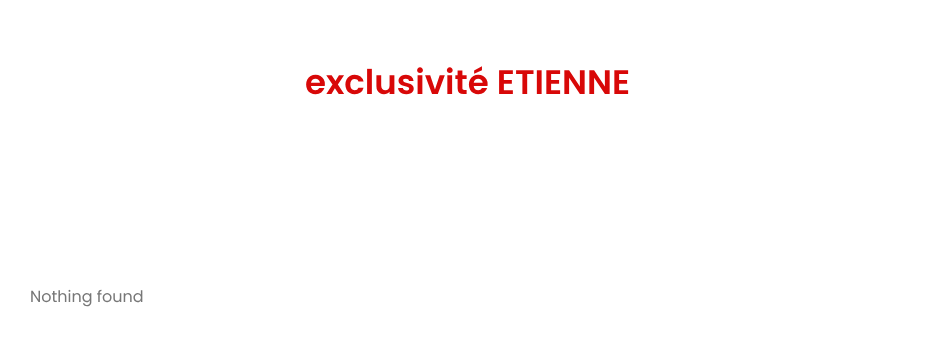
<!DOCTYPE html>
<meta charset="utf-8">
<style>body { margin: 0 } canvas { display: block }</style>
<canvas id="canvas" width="936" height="341"></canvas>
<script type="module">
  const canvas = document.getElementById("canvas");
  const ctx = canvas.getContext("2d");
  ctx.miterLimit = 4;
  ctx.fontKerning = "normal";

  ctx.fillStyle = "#ffffff";
  ctx.fillRect(0, 0, 936, 341);
  ctx.font = "600 34px Poppins";
  ctx.fillStyle = "#d80808";
  ctx.fillText("exclusivité ETIENNE", 305, 94);
  ctx.font = "16px Poppins";
  ctx.fillStyle = "#777777";
  ctx.fillText("Nothing found", 30, 302);
</script>
